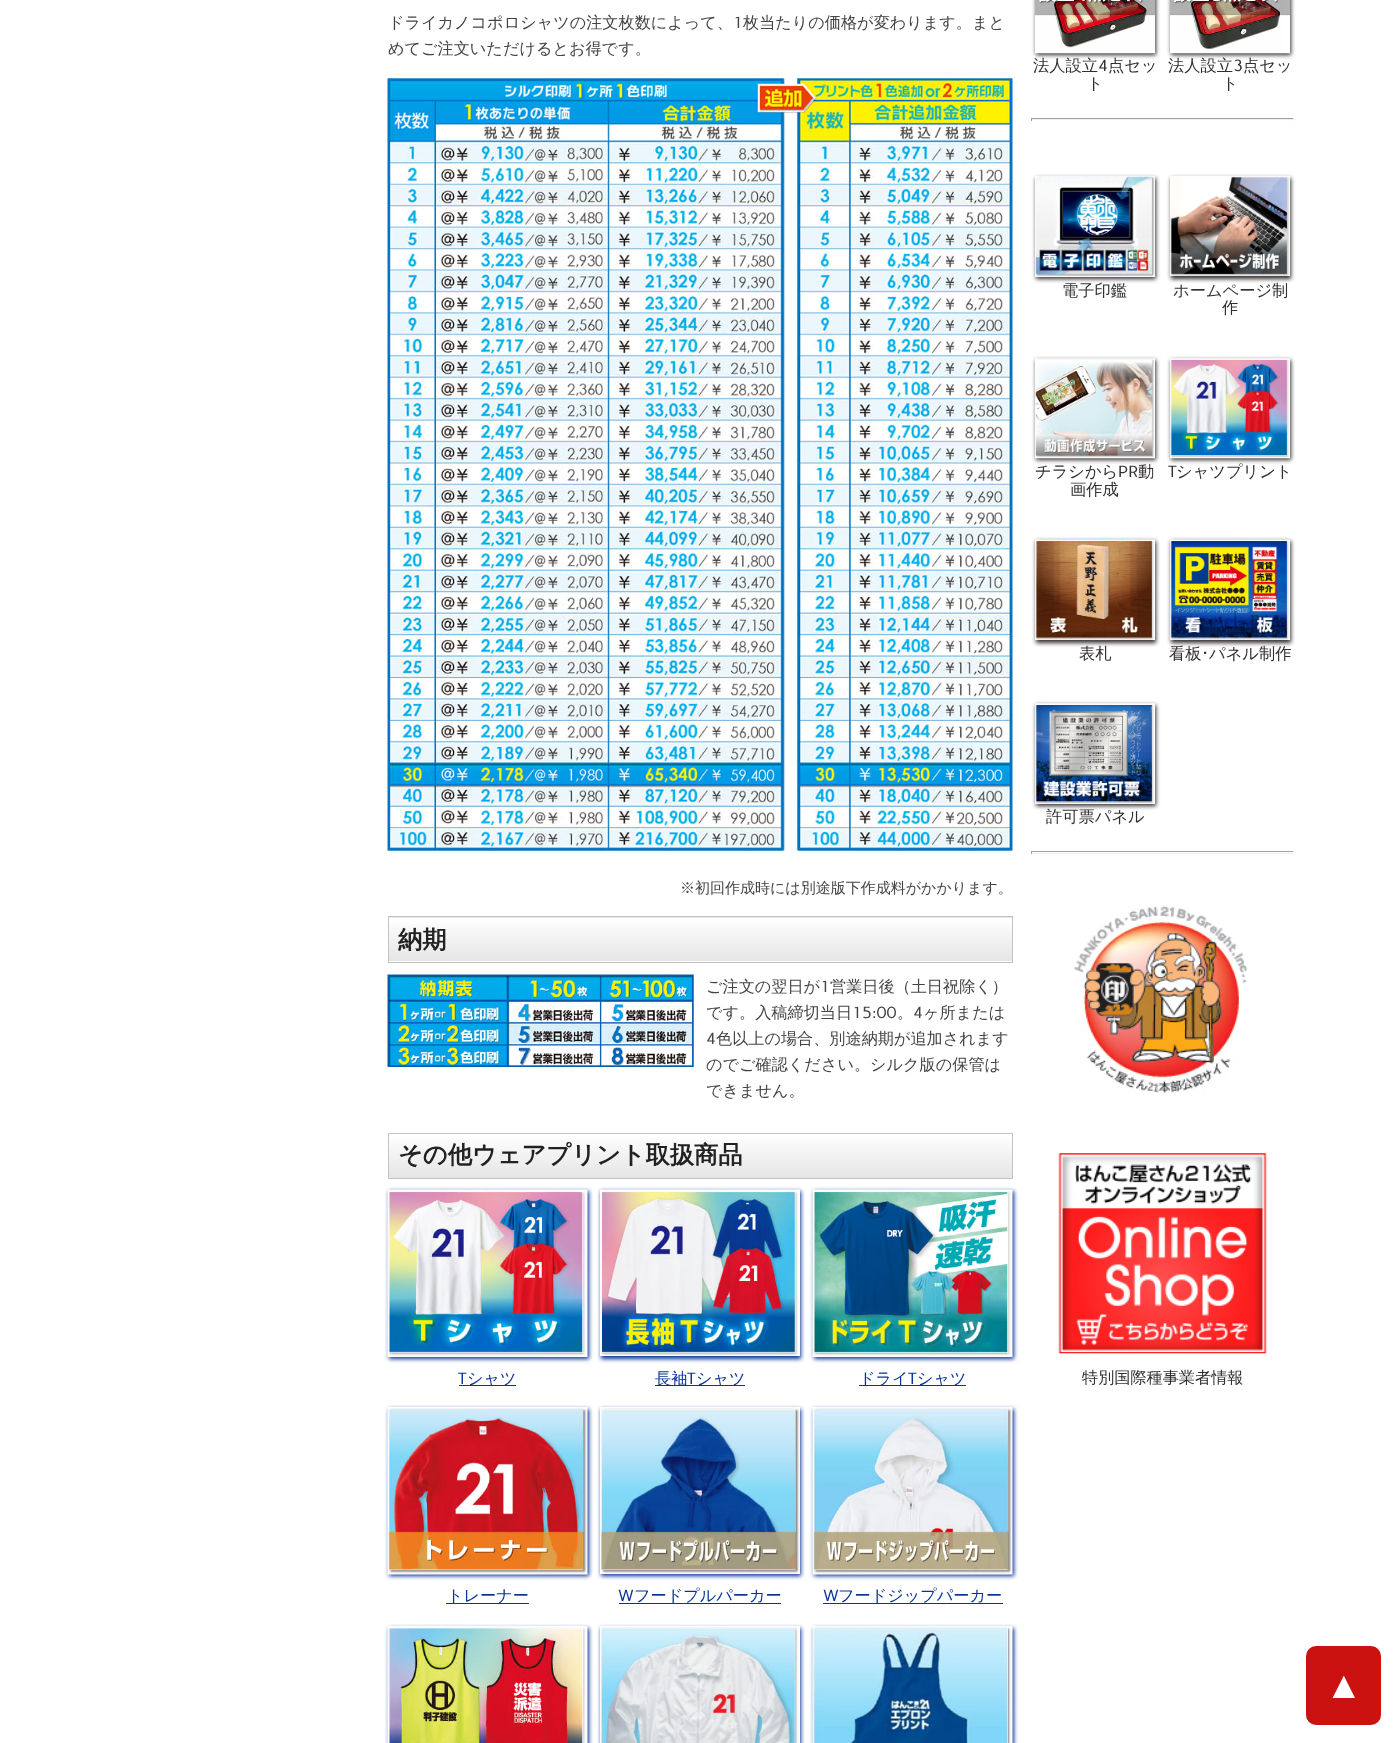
<!DOCTYPE html>
<meta charset="utf-8">
<style>body { margin: 0 } canvas { display: block }</style>
<canvas id="canvas" width="1399" height="1743"></canvas>
<script type="module">
  const canvas = document.getElementById("canvas");
  const ctx = canvas.getContext("2d");
  ctx.miterLimit = 4;
  ctx.fontKerning = "normal";
  async function loadImage(src) {
    const img = new Image();
    img.src = src;
    await img.decode();
    return img;
  }
  let gradient;

  ctx.fillStyle = "#ffffff";
  ctx.fillRect(0, 0, 1399, 1743);
  ctx.font = "500 16.15px WenQuanYi Zen Hei";
  ctx.fillStyle = "#444444";
  ctx.fillText("ドライカノコポロシャツの注文枚数によって、", 388, 28);
  ctx.font = "16.15px Carme";
  ctx.fillText("1", 733, 28);
  ctx.font = "500 16.15px WenQuanYi Zen Hei";
  ctx.fillText("枚当たりの価格が変わります。まと", 743, 28);
  ctx.fillText("めてご注文いただけるとお得です。", 388, 54);
  ctx.drawImage(await loadImage("img1.png"), 387, 78, 626, 773);
  ctx.font = "500 15px WenQuanYi Zen Hei";
  ctx.fillText("※初回作成時には別途版下作成料がかかります。", 680, 893);
  gradient = ctx.createLinearGradient(700, 874, 700, 918);
  gradient.addColorStop(0, "#ffffff");
  gradient.addColorStop(1, "#e5e5e5");
  ctx.fillStyle = gradient;
  ctx.fillRect(388, 917, 625, 1);
  gradient = ctx.createLinearGradient(700, 918, 700, 961);
  gradient.addColorStop(0, "#ffffff");
  gradient.addColorStop(1, "#e5e5e5");
  ctx.fillStyle = gradient;
  ctx.fillRect(389, 922, 623, 39);
  ctx.strokeStyle = "#c3c3c3";
  ctx.strokeRect(388.5, 916.5, 624, 46);
  ctx.font = "bold 24.25px WenQuanYi Zen Hei";
  ctx.fillStyle = "#222222";
  ctx.fillText("納期", 398, 948);
  ctx.drawImage(await loadImage("img2.png"), 387, 974, 307, 93);
  ctx.font = "500 16.15px WenQuanYi Zen Hei";
  ctx.fillStyle = "#444444";
  ctx.fillText("ご注文の翌日が", 706, 992);
  ctx.font = "16.15px Carme";
  ctx.fillText("1", 820, 992);
  ctx.font = "500 16.15px WenQuanYi Zen Hei";
  ctx.fillText("営業日後（土日祝除く）", 830, 992);
  ctx.fillText("です。入稿締切当日", 706, 1018);
  ctx.font = "16.15px Carme";
  ctx.fillText("15:00", 852, 1018);
  ctx.font = "500 16.15px WenQuanYi Zen Hei";
  ctx.fillText("。", 897, 1018);
  ctx.font = "16.15px Carme";
  ctx.fillText("4", 913, 1018);
  ctx.font = "500 16.15px WenQuanYi Zen Hei";
  ctx.fillText("ヶ所または", 923, 1018);
  ctx.font = "16.15px Carme";
  ctx.fillText("4", 706, 1044);
  ctx.font = "500 16.15px WenQuanYi Zen Hei";
  ctx.fillText("色以上の場合、別途納期が追加されます", 716, 1044);
  ctx.fillText("のでご確認ください。シルク版の保管は", 706, 1070);
  ctx.fillText("できません。", 706, 1096);
  gradient = ctx.createLinearGradient(700, 1134, 700, 1178);
  gradient.addColorStop(0, "#ffffff");
  gradient.addColorStop(1, "#e5e5e5");
  ctx.fillStyle = gradient;
  ctx.fillRect(389, 1138, 623, 40);
  ctx.strokeRect(388.5, 1133.5, 624, 45);
  ctx.font = "bold 24.25px WenQuanYi Zen Hei";
  ctx.fillStyle = "#222222";
  ctx.fillText("その他ウェアプリント取扱商品", 398, 1163);
  ctx.fillStyle = "#09339a";
  ctx.filter = "blur(2px)";
  ctx.beginPath();
  ctx.rect(389, 1191, 200, 168);
  ctx.fill();
  ctx.filter = "none";
  ctx.drawImage(await loadImage("img3.png"), 387, 1189, 201, 168);
  ctx.font = "16.15px Carme";
  ctx.fillText("T", 458, 1384);
  ctx.fillRect(459, 1385, 57, 1);
  ctx.font = "500 16.15px WenQuanYi Zen Hei";
  ctx.fillText("シャツ", 467, 1384);
  ctx.filter = "blur(2px)";
  ctx.beginPath();
  ctx.rect(601, 1191, 200, 168);
  ctx.fill();
  ctx.filter = "none";
  ctx.drawImage(await loadImage("img4.png"), 600, 1189, 200, 167);
  ctx.fillRect(655, 1385, 90, 1);
  ctx.fillText("長袖", 655, 1384);
  ctx.font = "16.15px Carme";
  ctx.fillText("T", 687, 1384);
  ctx.font = "500 16.15px WenQuanYi Zen Hei";
  ctx.fillText("シャツ", 696, 1384);
  ctx.filter = "blur(2px)";
  ctx.beginPath();
  ctx.rect(814, 1191, 200, 168);
  ctx.fill();
  ctx.filter = "none";
  ctx.drawImage(await loadImage("img5.png"), 812, 1189, 201, 168);
  ctx.fillRect(859, 1385, 107, 1);
  ctx.fillText("ドライ", 859, 1384);
  ctx.font = "16.15px Carme";
  ctx.fillText("T", 908, 1384);
  ctx.font = "500 16.15px WenQuanYi Zen Hei";
  ctx.fillText("シャツ", 917, 1384);
  ctx.filter = "blur(2px)";
  ctx.beginPath();
  ctx.rect(389, 1409, 200, 167);
  ctx.fill();
  ctx.filter = "none";
  ctx.drawImage(await loadImage("img6.png"), 387, 1407, 201, 168);
  ctx.fillRect(446, 1603, 83, 1);
  ctx.fillText("トレーナー", 447, 1601);
  ctx.filter = "blur(2px)";
  ctx.beginPath();
  ctx.rect(601, 1409, 200, 167);
  ctx.fill();
  ctx.filter = "none";
  ctx.drawImage(await loadImage("img7.png"), 600, 1407, 200, 167);
  ctx.font = "16.15px Carme";
  ctx.fillText("W", 618, 1601);
  ctx.fillRect(619, 1603, 162, 1);
  ctx.font = "500 16.15px WenQuanYi Zen Hei";
  ctx.fillText("フードプルパーカー", 634, 1601);
  ctx.filter = "blur(2px)";
  ctx.beginPath();
  ctx.rect(814, 1409, 200, 167);
  ctx.fill();
  ctx.filter = "none";
  ctx.drawImage(await loadImage("img8.png"), 812, 1407, 201, 168);
  ctx.font = "16.15px Carme";
  ctx.fillText("W", 823, 1601);
  ctx.fillRect(823, 1603, 180, 1);
  ctx.font = "500 16.15px WenQuanYi Zen Hei";
  ctx.fillText("フードジップパーカー", 838, 1601);
  ctx.filter = "blur(2px)";
  ctx.beginPath();
  ctx.rect(389, 1628, 200, 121);
  ctx.fill();
  ctx.filter = "none";
  ctx.drawImage(await loadImage("img9.png"), 387, 1625, 201, 118);
  ctx.filter = "blur(2px)";
  ctx.beginPath();
  ctx.rect(601, 1628, 200, 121);
  ctx.fill();
  ctx.filter = "none";
  ctx.drawImage(await loadImage("img10.png"), 600, 1625, 200, 118);
  ctx.filter = "blur(2px)";
  ctx.beginPath();
  ctx.rect(814, 1628, 200, 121);
  ctx.fill();
  ctx.filter = "none";
  ctx.drawImage(await loadImage("img11.png"), 812, 1625, 201, 118);
  ctx.fillStyle = "#332f2f";
  ctx.filter = "blur(2px)";
  ctx.beginPath();
  ctx.rect(1036, -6, 120, 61);
  ctx.fill();
  ctx.filter = "none";
  ctx.drawImage(await loadImage("img12.png"), 1035, 0, 120, 54);
  ctx.font = "500 16.25px WenQuanYi Zen Hei";
  ctx.fillText("法人設立", 1033, 71);
  ctx.font = "16.25px Carme";
  ctx.fillText("4", 1098, 71);
  ctx.font = "500 16.25px WenQuanYi Zen Hei";
  ctx.fillText("点セッ", 1108, 71);
  ctx.fillText("ト", 1087, 89);
  ctx.filter = "blur(2px)";
  ctx.beginPath();
  ctx.rect(1171, -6, 120, 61);
  ctx.fill();
  ctx.filter = "none";
  ctx.drawImage(await loadImage("img13.png"), 1170, 0, 120, 54);
  ctx.fillText("法人設立", 1168, 71);
  ctx.font = "16.25px Carme";
  ctx.fillText("3", 1233, 71);
  ctx.font = "500 16.25px WenQuanYi Zen Hei";
  ctx.fillText("点セッ", 1243, 71);
  ctx.fillText("ト", 1222, 89);
  ctx.fillStyle = "#9f9f9f";
  ctx.fillRect(1031, 118, 263, 1);
  ctx.fillStyle = "#eeeeee";
  ctx.fillRect(1293, 118, 1, 3);
  ctx.fillRect(1031, 119, 263, 1);
  ctx.fillStyle = "#9f9f9f";
  ctx.fillRect(1031, 118, 1, 3);
  ctx.fillStyle = "#332f2f";
  ctx.filter = "blur(2px)";
  ctx.beginPath();
  ctx.rect(1036, 178, 120, 101);
  ctx.fill();
  ctx.filter = "none";
  ctx.drawImage(await loadImage("img14.png"), 1035, 175, 120, 102);
  ctx.fillText("電子印鑑", 1062, 296);
  ctx.filter = "blur(2px)";
  ctx.beginPath();
  ctx.rect(1171, 178, 120, 101);
  ctx.fill();
  ctx.filter = "none";
  ctx.drawImage(await loadImage("img15.png"), 1170, 175, 120, 101);
  ctx.fillText("ホームページ制", 1173, 296);
  ctx.fillText("作", 1222, 313);
  ctx.filter = "blur(2px)";
  ctx.beginPath();
  ctx.rect(1036, 360, 120, 100);
  ctx.fill();
  ctx.filter = "none";
  ctx.drawImage(await loadImage("img16.png"), 1035, 358, 120, 101);
  ctx.fillText("チラシから", 1035, 477);
  ctx.font = "16.25px Carme";
  ctx.fillText("PR", 1118, 477);
  ctx.font = "500 16.25px WenQuanYi Zen Hei";
  ctx.fillText("動", 1138, 477);
  ctx.fillText("画作成", 1070, 495);
  ctx.filter = "blur(2px)";
  ctx.beginPath();
  ctx.rect(1171, 360, 120, 100);
  ctx.fill();
  ctx.filter = "none";
  ctx.drawImage(await loadImage("img17.png"), 1170, 358, 120, 101);
  ctx.font = "16.25px Carme";
  ctx.fillText("T", 1168, 477);
  ctx.font = "500 16.25px WenQuanYi Zen Hei";
  ctx.fillText("シャツプリント", 1176, 477);
  ctx.filter = "blur(2px)";
  ctx.beginPath();
  ctx.rect(1036, 541, 120, 102);
  ctx.fill();
  ctx.filter = "none";
  ctx.drawImage(await loadImage("img18.png"), 1035, 539, 120, 101);
  ctx.fillText("表札", 1079, 659);
  ctx.filter = "blur(2px)";
  ctx.beginPath();
  ctx.rect(1171, 541, 120, 102);
  ctx.fill();
  ctx.filter = "none";
  ctx.drawImage(await loadImage("img19.png"), 1170, 539, 120, 101);
  ctx.fillText("看板", 1169, 659);
  ctx.font = "16.25px IPAPGothic";
  ctx.fillText("･", 1201, 659);
  ctx.font = "500 16.25px WenQuanYi Zen Hei";
  ctx.fillText("パネル制作", 1209, 659);
  ctx.filter = "blur(2px)";
  ctx.beginPath();
  ctx.rect(1036, 705, 120, 101);
  ctx.fill();
  ctx.filter = "none";
  ctx.drawImage(await loadImage("img20.png"), 1035, 703, 120, 101);
  ctx.fillText("許可票パネル", 1046, 822);
  ctx.fillStyle = "#9f9f9f";
  ctx.fillRect(1031, 851, 263, 1);
  ctx.fillStyle = "#eeeeee";
  ctx.fillRect(1293, 851, 1, 3);
  ctx.fillRect(1031, 853, 263, 1);
  ctx.fillStyle = "#9f9f9f";
  ctx.fillRect(1031, 851, 1, 3);
  ctx.drawImage(await loadImage("img21.png"), 1073, 905, 175, 189);
  ctx.drawImage(await loadImage("img22.png"), 1058, 1153, 209, 201);
  ctx.font = "500 16.15px WenQuanYi Zen Hei";
  ctx.fillStyle = "#332f2f";
  ctx.fillText("特別国際種事業者情報", 1082, 1383);
  ctx.fillStyle = "#cc1111";
  ctx.beginPath();
  ctx.roundRect(1306, 1646, 75, 79, 10);
  ctx.fill();
  ctx.font = "38px Liberation Sans";
  ctx.fillStyle = "#ffffff";
  ctx.fillText("▲", 1325, 1698);
</script>
